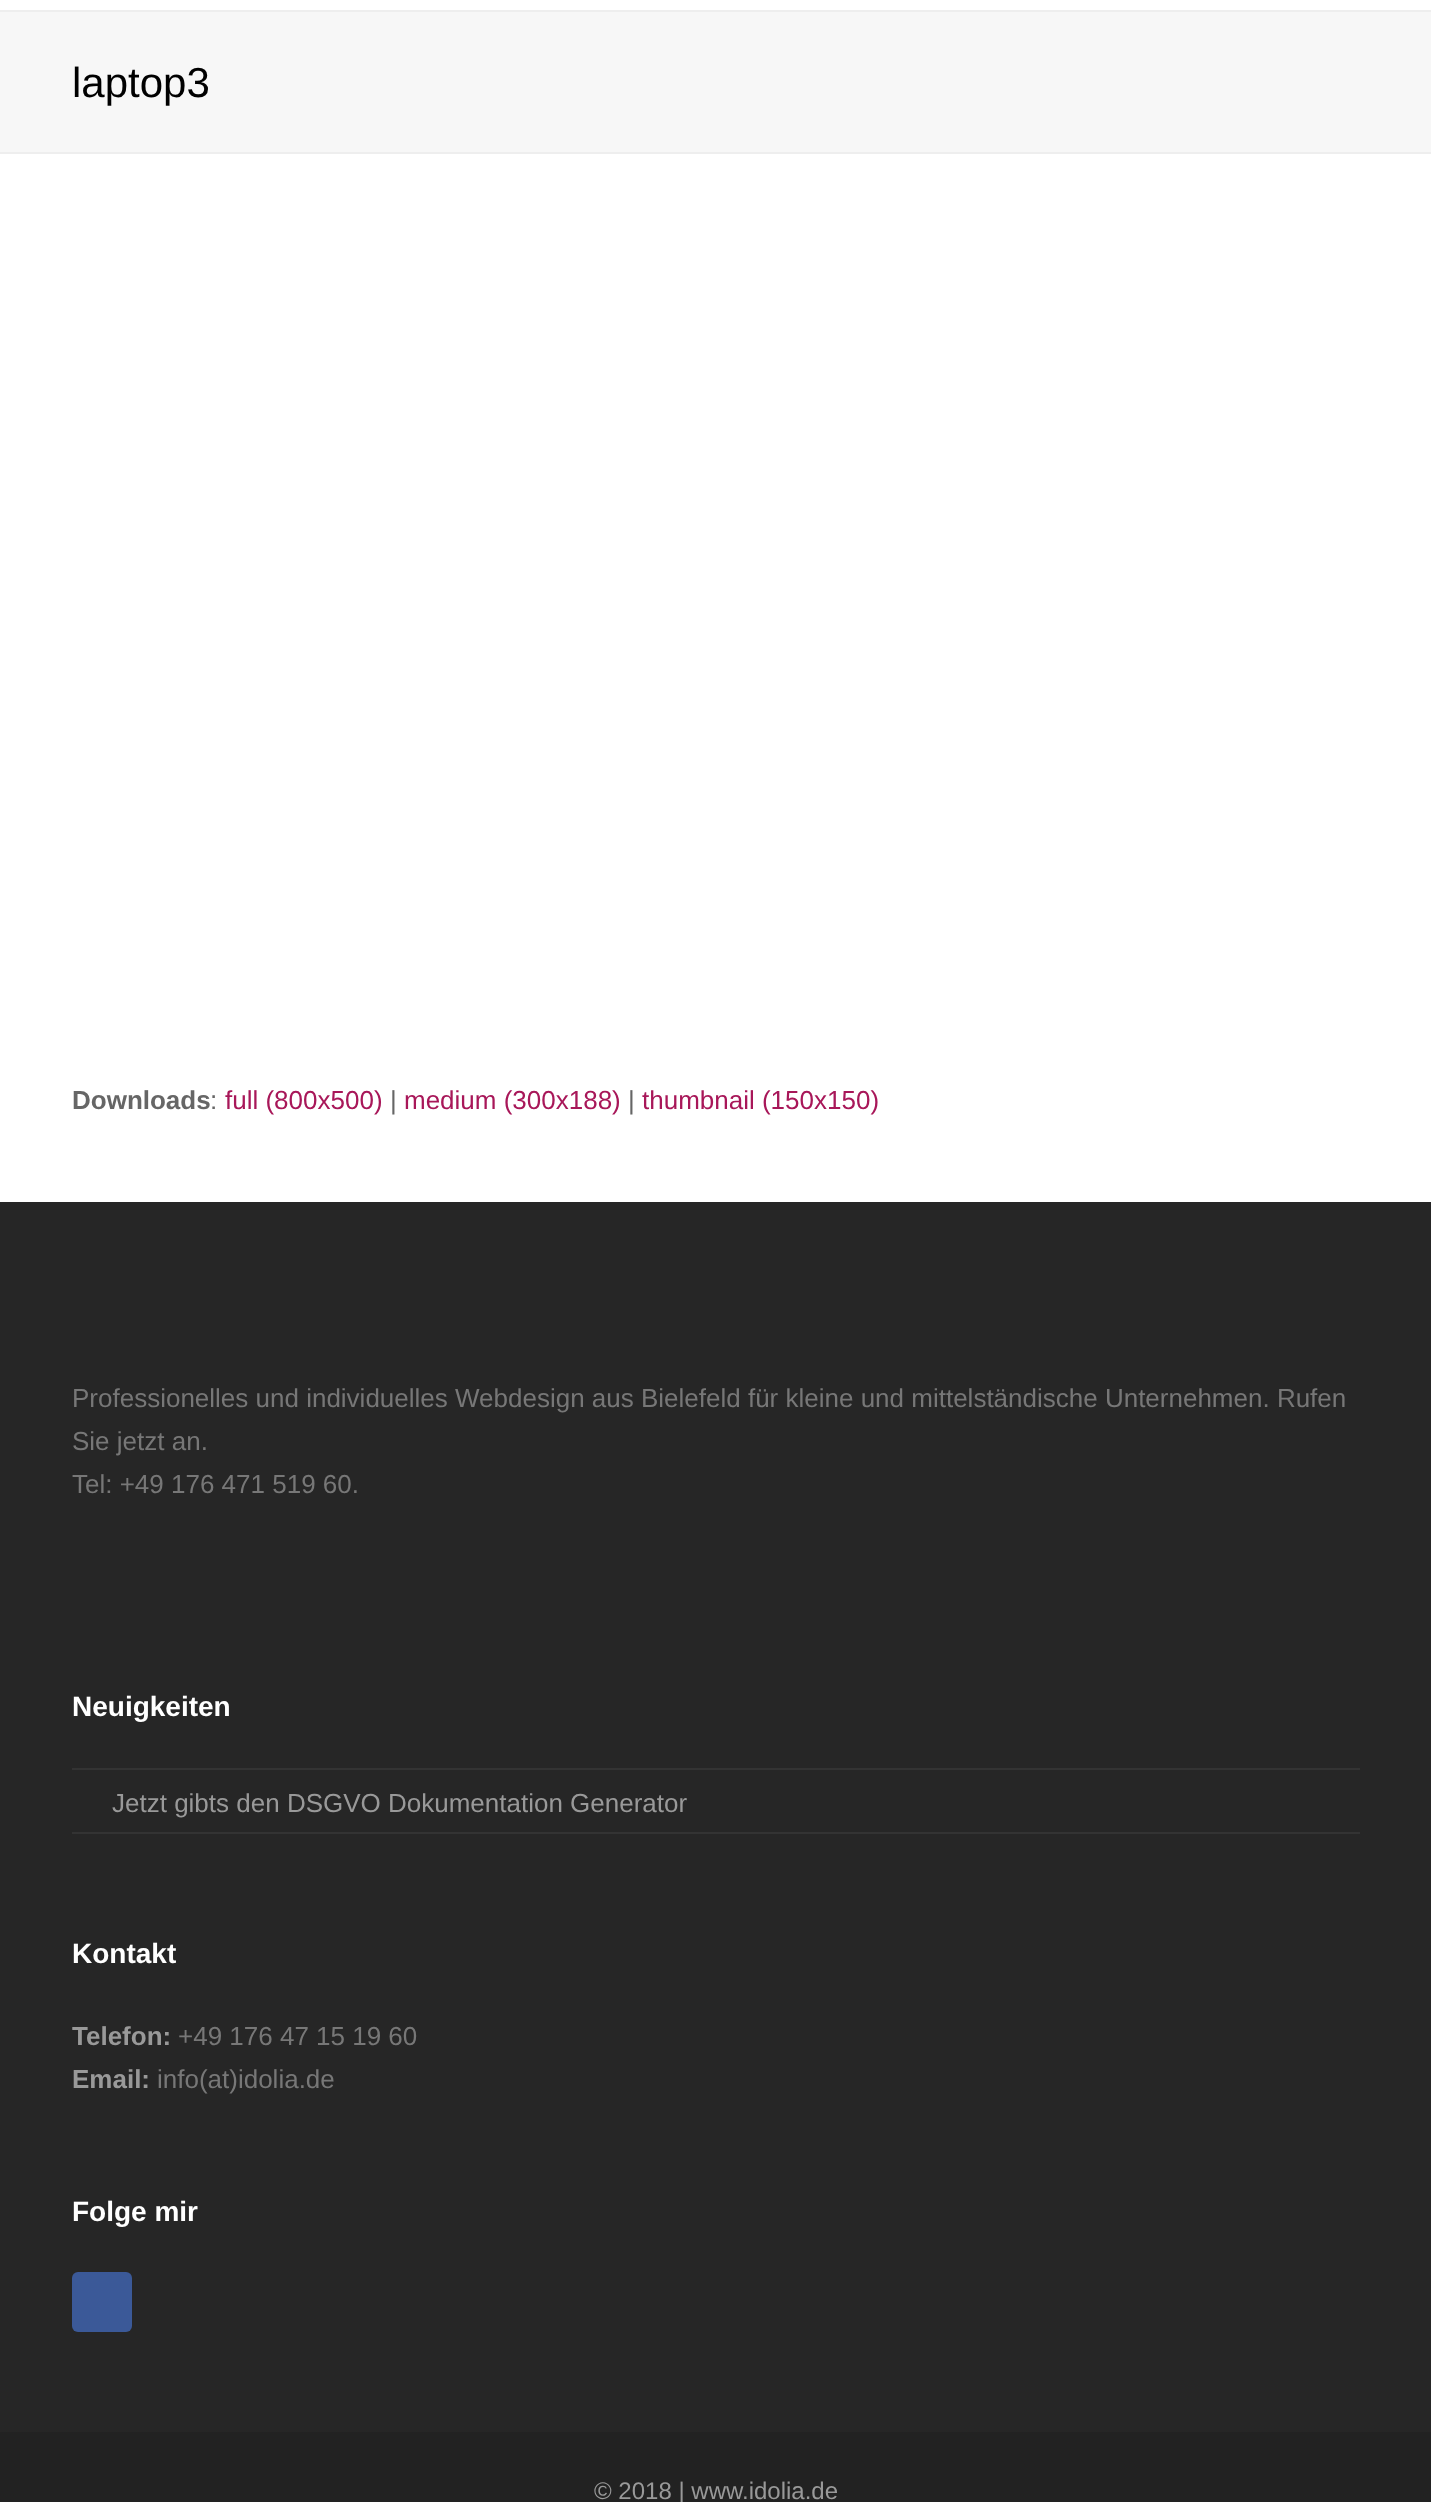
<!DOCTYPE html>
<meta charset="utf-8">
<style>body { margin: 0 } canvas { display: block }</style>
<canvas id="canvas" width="1431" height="2502"></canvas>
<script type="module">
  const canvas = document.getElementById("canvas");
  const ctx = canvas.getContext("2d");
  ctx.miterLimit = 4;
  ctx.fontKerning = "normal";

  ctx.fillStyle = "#ffffff";
  ctx.fillRect(0, 0, 1431, 2502);
  ctx.fillStyle = "#f7f7f7";
  ctx.fillRect(0, 12, 1431, 140);
  ctx.fillStyle = "#eeeeee";
  ctx.fillRect(0, 10, 1431, 2);
  ctx.fillRect(0, 152, 1431, 2);
  ctx.font = "42px Liberation Sans";
  ctx.fillStyle = "#000000";
  ctx.fillText("laptop3", 72, 97);
  ctx.font = "bold 26px Liberation Sans";
  ctx.fillStyle = "#666666";
  ctx.fillText("Downloads", 72, 1109);
  ctx.font = "26px Liberation Sans";
  ctx.fillText(":", 210, 1109);
  ctx.fillStyle = "#a81759";
  ctx.fillText("full (800x500)", 225, 1109);
  ctx.fillStyle = "#666666";
  ctx.fillText("|", 390, 1109);
  ctx.fillStyle = "#a81759";
  ctx.fillText("medium (300x188)", 404, 1109);
  ctx.fillStyle = "#666666";
  ctx.fillText("|", 628, 1109);
  ctx.fillStyle = "#a81759";
  ctx.fillText("thumbnail (150x150)", 642, 1109);
  ctx.fillStyle = "#262626";
  ctx.fillRect(0, 1202, 1431, 1230);
  ctx.fillStyle = "#777777";
  ctx.fillText("Professionelles und individuelles Webdesign aus Bielefeld für kleine und mittelständische Unternehmen. Rufen", 72, 1407);
  ctx.fillText("Sie jetzt an.", 72, 1450);
  ctx.fillText("Tel: +49 176 471 519 60.", 72, 1493);
  ctx.font = "bold 28px Liberation Sans";
  ctx.fillStyle = "#ffffff";
  ctx.fillText("Neuigkeiten", 72, 1716);
  ctx.fillStyle = "#333333";
  ctx.fillRect(72, 1768, 1288, 2);
  ctx.fillRect(72, 1832, 1288, 2);
  ctx.font = "26px Liberation Sans";
  ctx.fillStyle = "#999999";
  ctx.fillText("Jetzt gibts den DSGVO Dokumentation Generator", 112, 1812);
  ctx.font = "bold 28px Liberation Sans";
  ctx.fillStyle = "#ffffff";
  ctx.fillText("Kontakt", 72, 1963);
  ctx.font = "bold 26px Liberation Sans";
  ctx.fillStyle = "#999999";
  ctx.fillText("Telefon:", 72, 2045);
  ctx.font = "26px Liberation Sans";
  ctx.fillStyle = "#777777";
  ctx.fillText("+49 176 47 15 19 60", 178, 2045);
  ctx.font = "bold 26px Liberation Sans";
  ctx.fillStyle = "#999999";
  ctx.fillText("Email:", 72, 2088);
  ctx.font = "26px Liberation Sans";
  ctx.fillStyle = "#777777";
  ctx.fillText("info(at)idolia.de", 157, 2088);
  ctx.font = "bold 28px Liberation Sans";
  ctx.fillStyle = "#ffffff";
  ctx.fillText("Folge mir", 72, 2221);
  ctx.fillStyle = "#3b5998";
  ctx.beginPath();
  ctx.roundRect(72, 2272, 60, 60, 6);
  ctx.fill();
  ctx.fillStyle = "#222222";
  ctx.fillRect(0, 2432, 1431, 70);
  ctx.font = "24px Liberation Sans";
  ctx.fillStyle = "#999999";
  ctx.fillText("© 2018 | www.idolia.de", 594, 2499);
</script>
